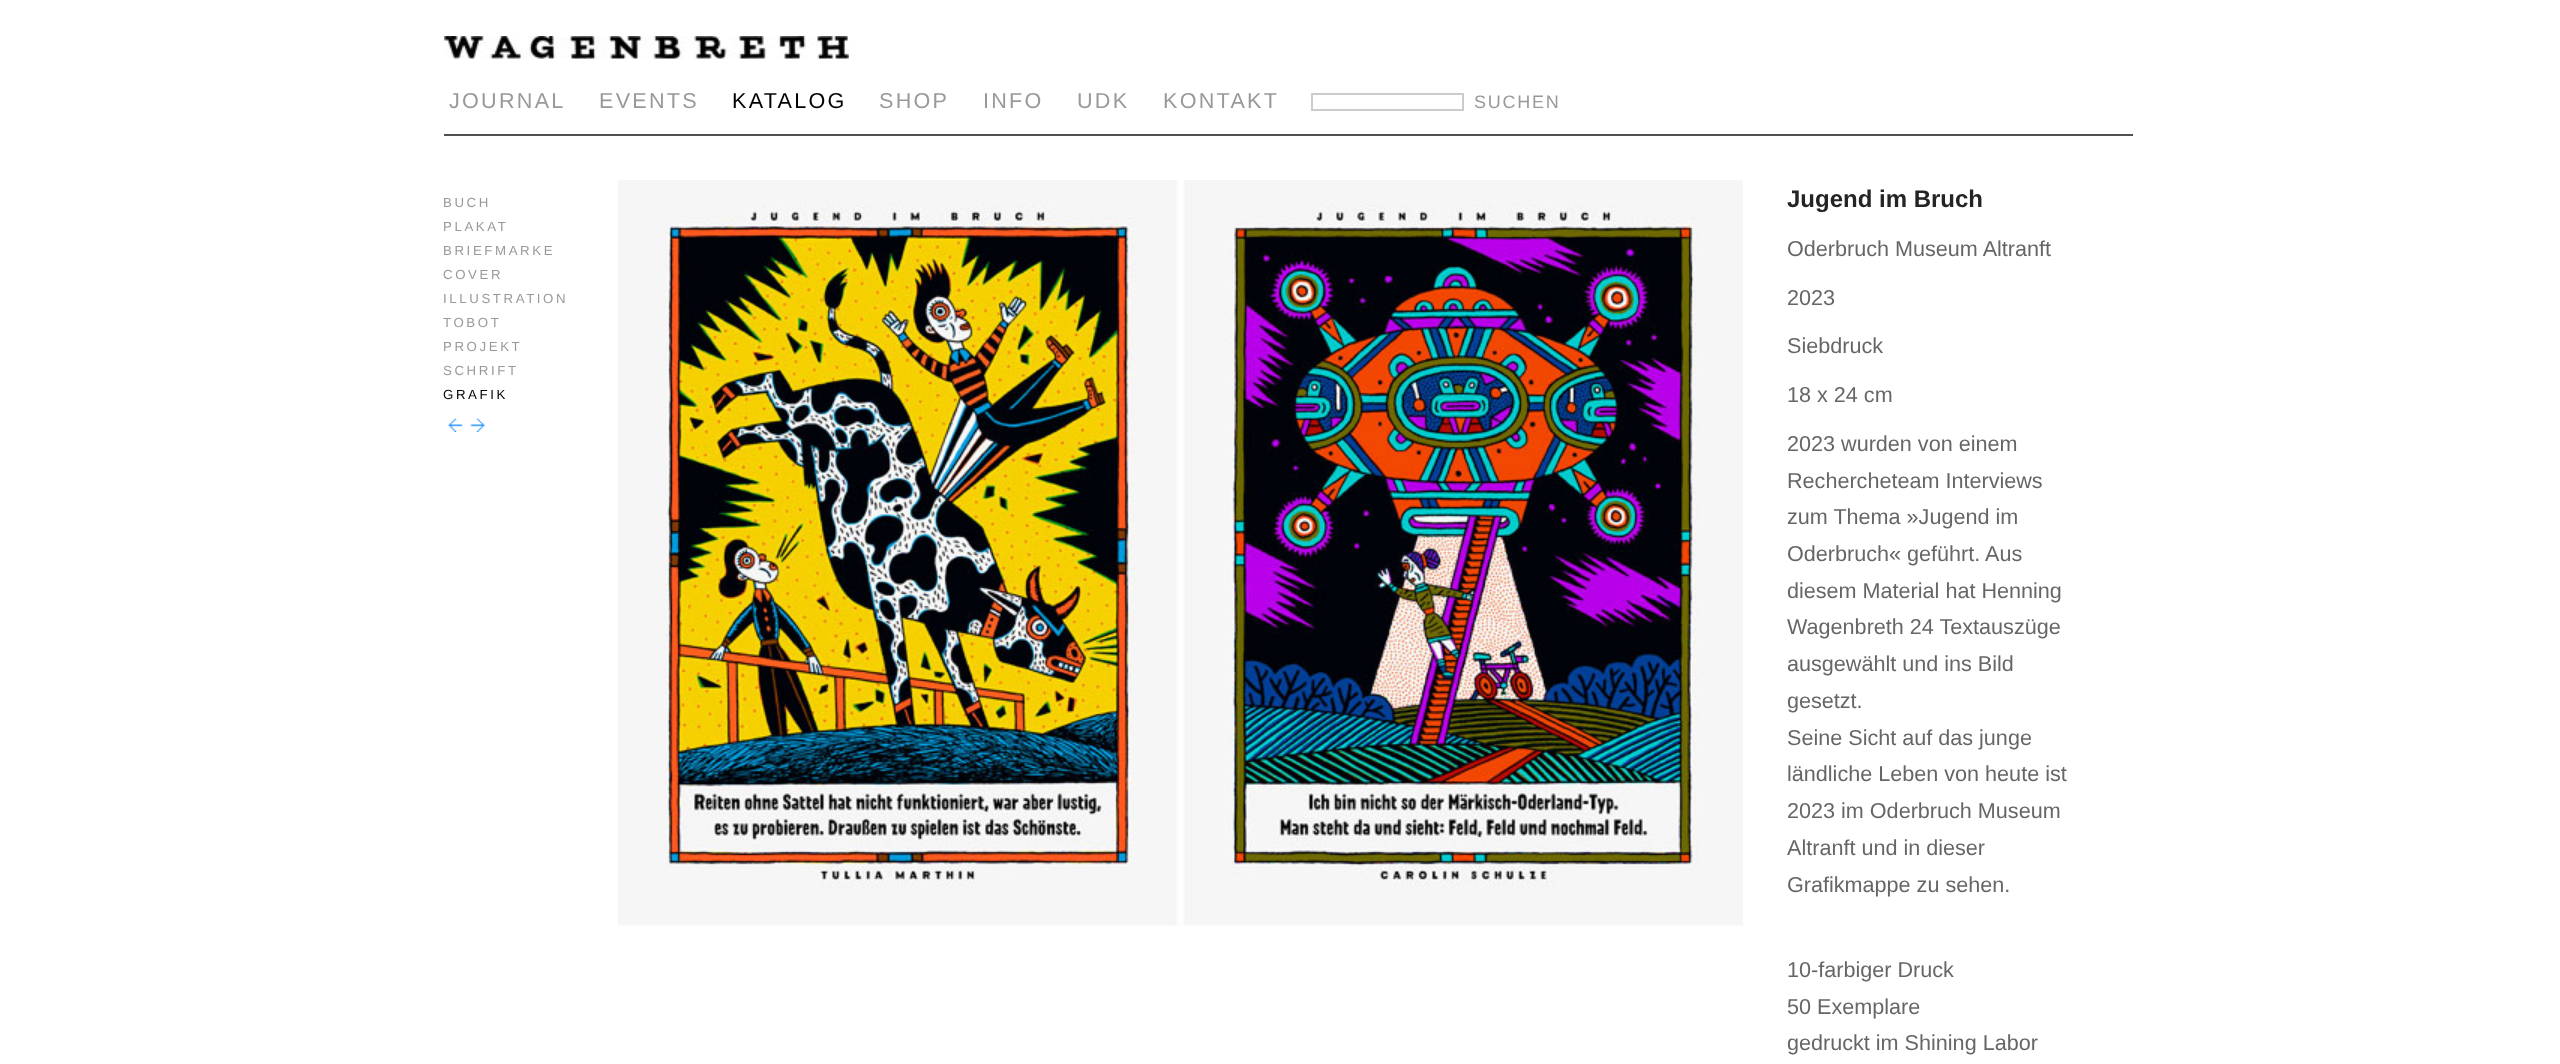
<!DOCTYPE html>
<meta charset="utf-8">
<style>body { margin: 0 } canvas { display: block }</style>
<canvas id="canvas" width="2560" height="1064"></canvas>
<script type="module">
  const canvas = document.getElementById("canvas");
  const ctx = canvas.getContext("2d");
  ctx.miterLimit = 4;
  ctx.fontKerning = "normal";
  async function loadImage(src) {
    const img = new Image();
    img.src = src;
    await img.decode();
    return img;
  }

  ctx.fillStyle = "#ffffff";
  ctx.fillRect(0, 0, 2560, 1064);
  ctx.fillStyle = "#505050";
  ctx.fillRect(444, 134, 1689, 2);
  ctx.drawImage(await loadImage("img1.png"), 444, 36, 405, 23);
  ctx.letterSpacing = "2.25px";
  ctx.font = "21.6px Liberation Sans";
  ctx.fillStyle = "#999999";
  ctx.fillText("JOURNAL", 449, 108);
  ctx.fillText("EVENTS", 599, 108);
  ctx.fillStyle = "#000000";
  ctx.fillText("KATALOG", 732, 108);
  ctx.fillStyle = "#999999";
  ctx.fillText("SHOP", 879, 108);
  ctx.fillText("INFO", 983, 108);
  ctx.fillText("UDK", 1077, 108);
  ctx.fillText("KONTAKT", 1163, 108);
  ctx.strokeStyle = "#cccccc";
  ctx.lineWidth = 2;
  ctx.strokeRect(1312, 94, 151, 16);
  ctx.letterSpacing = "1.75px";
  ctx.font = "18px Liberation Sans";
  ctx.fillText("SUCHEN", 1474, 108);
  ctx.letterSpacing = "2.6px";
  ctx.font = "13.25px Liberation Sans";
  ctx.fillText("BUCH", 443, 207);
  ctx.fillText("PLAKAT", 443, 231);
  ctx.fillText("BRIEFMARKE", 443, 255);
  ctx.fillText("COVER", 443, 279);
  ctx.fillText("ILLUSTRATION", 443, 303);
  ctx.fillText("TOBOT", 443, 327);
  ctx.fillText("PROJEKT", 443, 351);
  ctx.fillText("SCHRIFT", 443, 375);
  ctx.fillStyle = "#000000";
  ctx.fillText("GRAFIK", 443, 399);
  ctx.drawImage(await loadImage("img2.png"), 448, 418, 15, 14);
  ctx.drawImage(await loadImage("img3.png"), 470, 418, 15, 14);
  ctx.drawImage(await loadImage("img4.png"), 618, 180, 1125, 746);
  ctx.letterSpacing = "0px";
  ctx.font = "bold 24px Liberation Sans";
  ctx.fillStyle = "#242424";
  ctx.fillText("Jugend im Bruch", 1787, 207);
  ctx.font = "21.6px Liberation Sans";
  ctx.fillStyle = "#666666";
  ctx.fillText("Oderbruch Museum Altranft", 1787, 256);
  ctx.fillText("2023", 1787, 305);
  ctx.fillText("Siebdruck", 1787, 353);
  ctx.fillText("18 x 24 cm", 1787, 402);
  ctx.fillText("2023 wurden von einem", 1787, 451);
  ctx.fillText("Rechercheteam Interviews", 1787, 488);
  ctx.fillText("zum Thema »Jugend im", 1787, 524);
  ctx.fillText("Oderbruch« geführt. Aus", 1787, 561);
  ctx.fillText("diesem Material hat Henning", 1787, 598);
  ctx.fillText("Wagenbreth 24 Textauszüge", 1787, 634);
  ctx.fillText("ausgewählt und ins Bild", 1787, 671);
  ctx.fillText("gesetzt.", 1787, 708);
  ctx.fillText("Seine Sicht auf das junge", 1787, 745);
  ctx.fillText("ländliche Leben von heute ist", 1787, 781);
  ctx.fillText("2023 im Oderbruch Museum", 1787, 818);
  ctx.fillText("Altranft und in dieser", 1787, 855);
  ctx.fillText("Grafikmappe zu sehen.", 1787, 892);
  ctx.fillText("10-farbiger Druck", 1787, 977);
  ctx.fillText("50 Exemplare", 1787, 1014);
  ctx.fillText("gedruckt im Shining Labor", 1787, 1050);
</script>
